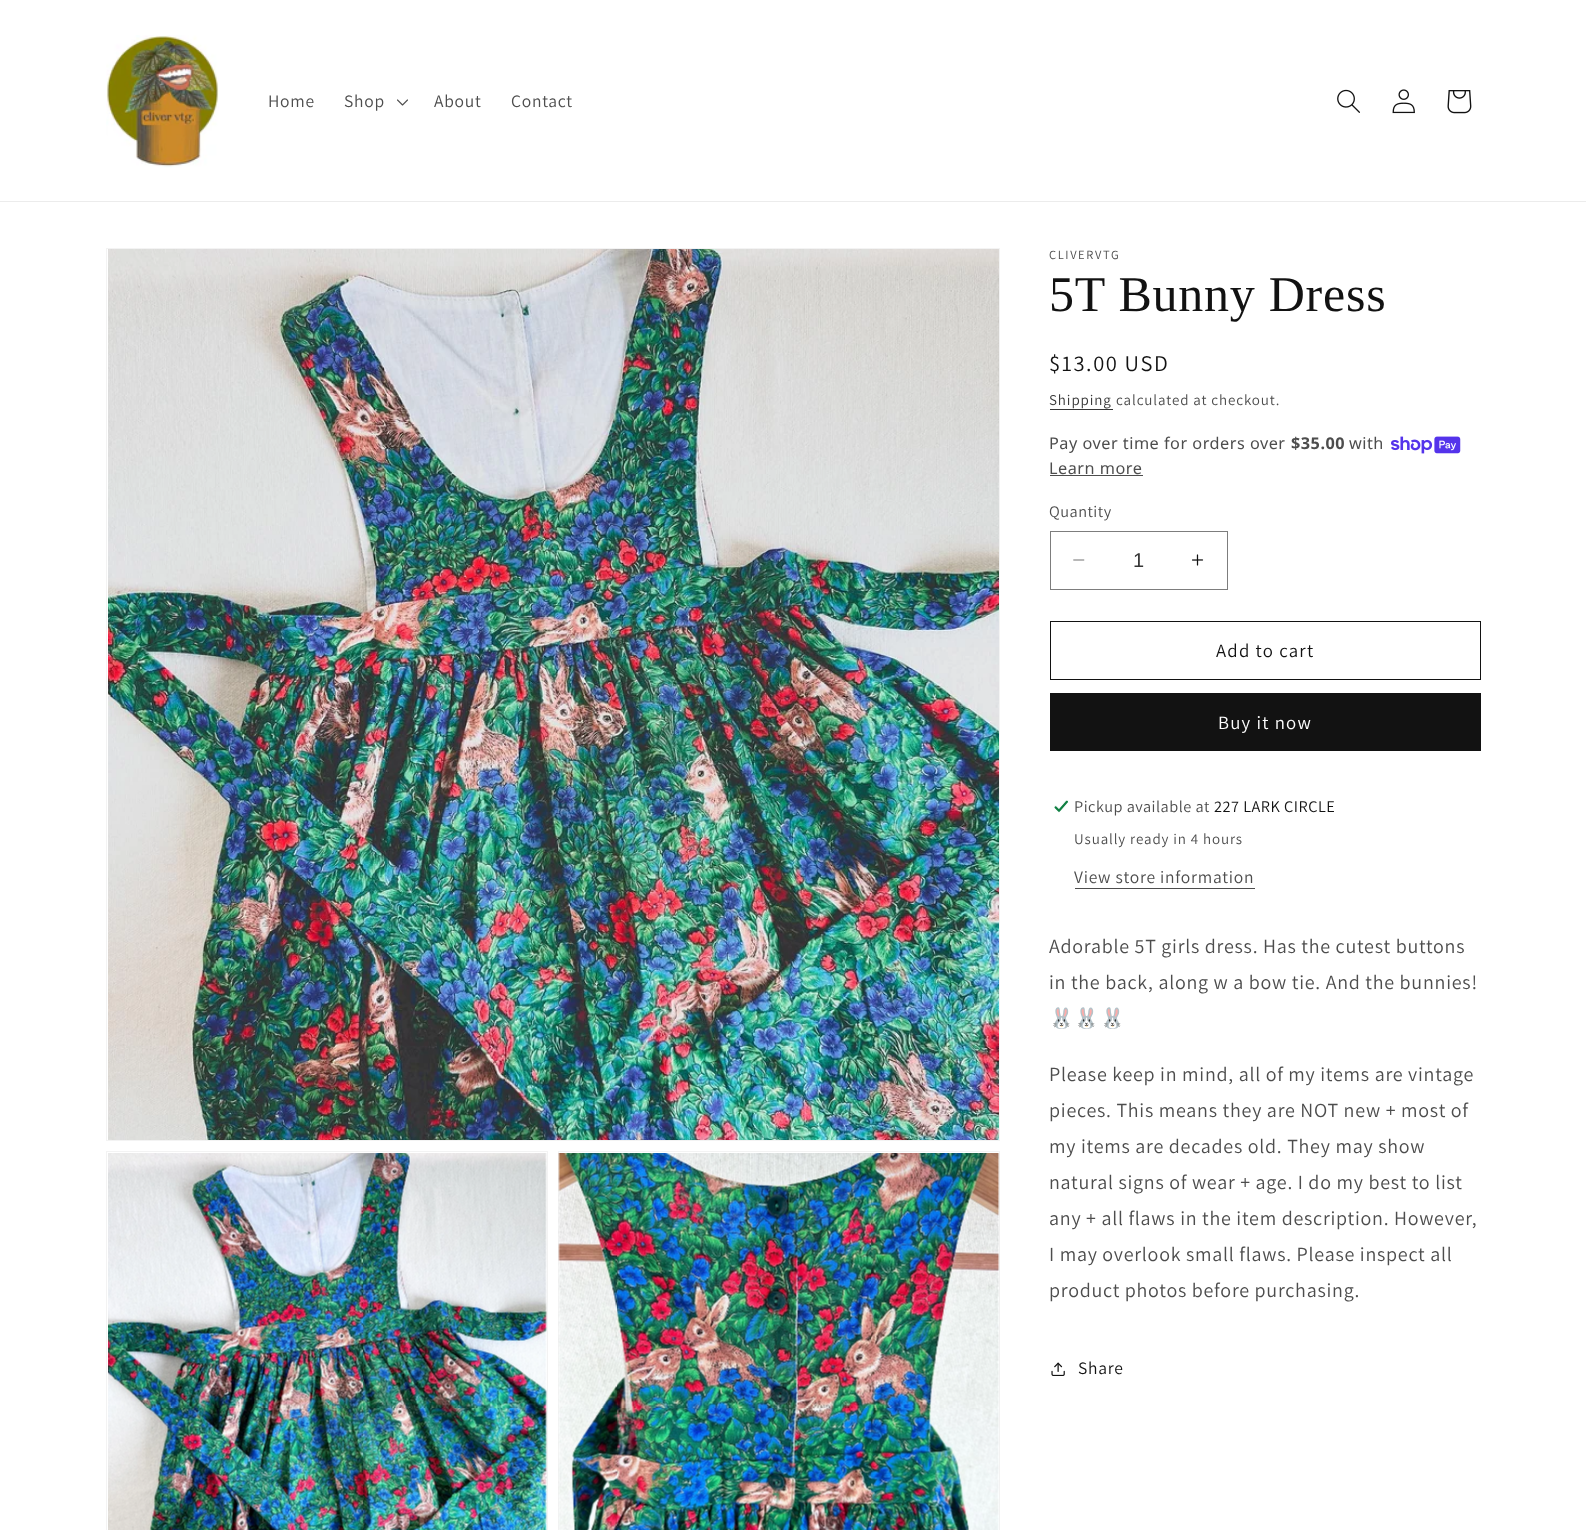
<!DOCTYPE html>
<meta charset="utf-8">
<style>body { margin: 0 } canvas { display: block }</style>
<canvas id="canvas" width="1586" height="1530"></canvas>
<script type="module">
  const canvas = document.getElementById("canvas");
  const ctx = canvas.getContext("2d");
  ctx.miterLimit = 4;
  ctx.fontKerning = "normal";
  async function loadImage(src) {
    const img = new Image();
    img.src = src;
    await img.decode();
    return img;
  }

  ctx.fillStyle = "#ffffff";
  ctx.fillRect(0, 0, 1586, 1530);
  ctx.fillStyle = "#ececec";
  ctx.fillRect(0, 201, 1586, 1);
  ctx.drawImage(await loadImage("img1.png"), 106, 35, 113, 133);
  ctx.letterSpacing = "0.75px";
  ctx.font = "17.5px Assistant";
  ctx.fillStyle = "#4d4d4d";
  ctx.fillText("Home", 268, 107);
  ctx.fillText("Shop", 344, 107);
  ctx.drawImage(await loadImage("img2.png"), 397, 99, 11, 7);
  ctx.fillText("About", 434, 107);
  ctx.fillText("Contact", 511, 107);
  ctx.drawImage(await loadImage("img3.png"), 1337, 89, 23, 24);
  ctx.drawImage(await loadImage("img4.png"), 1392, 89, 23, 25);
  ctx.drawImage(await loadImage("img5.png"), 1447, 90, 25, 24);
  ctx.strokeStyle = "#f3f3f3";
  ctx.strokeRect(106.5, 248.5, 893, 892);
  ctx.drawImage(await loadImage("img6.png"), 108, 249, 891, 891);
  ctx.strokeRect(106.5, 1151.5, 441, 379);
  ctx.drawImage(await loadImage("img7.png"), 108, 1153, 439, 377);
  ctx.strokeRect(558.5, 1151.5, 441, 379);
  ctx.drawImage(await loadImage("img8.png"), 558, 1153, 442, 377);
  ctx.letterSpacing = "1.6px";
  ctx.font = "12.5px Assistant";
  ctx.fillText("CLIVERVTG", 1049, 259);
  ctx.letterSpacing = "0.75px";
  ctx.font = "50px Liberation Serif";
  ctx.fillStyle = "#121212";
  ctx.fillText("5T Bunny Dress", 1049, 311);
  ctx.letterSpacing = "1.6px";
  ctx.font = "22.5px Assistant";
  ctx.fillText("$13.00 USD", 1049, 371);
  ctx.letterSpacing = "0.9px";
  ctx.font = "15px Assistant";
  ctx.fillStyle = "#363636";
  ctx.fillText("Shipping", 1049, 405);
  ctx.fillRect(1050, 409, 63, 1);
  ctx.fillStyle = "#4d4d4d";
  ctx.fillText("calculated at checkout.", 1116, 405);
  ctx.letterSpacing = "0.5px";
  ctx.font = "16.25px Noto Sans";
  ctx.fillText("Pay over time for orders over", 1049, 449);
  ctx.font = "bold 16.25px Noto Sans";
  ctx.fillText("$35.00", 1291, 449);
  ctx.font = "16.25px Noto Sans";
  ctx.fillText("with", 1349, 449);
  ctx.drawImage(await loadImage("img9.png"), 1391, 436, 70, 18);
  ctx.fillText("Learn more", 1049, 474);
  ctx.fillRect(1050, 475, 93, 1);
  ctx.font = "16.25px Assistant";
  ctx.fillText("Quantity", 1049, 517);
  ctx.drawImage(await loadImage("img10.png"), 1073, 559, 12, 2);
  ctx.drawImage(await loadImage("img11.png"), 1192, 554, 12, 12);
  ctx.strokeStyle = "#7d7d7d";
  ctx.strokeRect(1050.5, 531.5, 177, 58);
  ctx.letterSpacing = "0px";
  ctx.font = "20px Liberation Sans";
  ctx.fillStyle = "#363636";
  ctx.fillText("1", 1133, 567);
  ctx.strokeStyle = "#121212";
  ctx.strokeRect(1050.5, 621.5, 430, 58);
  ctx.letterSpacing = "1.25px";
  ctx.font = "18.75px Assistant";
  ctx.fillStyle = "#121212";
  ctx.fillText("Add to cart", 1216, 657);
  ctx.fillRect(1050, 693, 431, 58);
  ctx.fillStyle = "#ffffff";
  ctx.fillText("Buy it now", 1218, 729);
  ctx.drawImage(await loadImage("img12.png"), 1054, 800, 15, 13);
  ctx.letterSpacing = "0.5px";
  ctx.font = "16.25px Assistant";
  ctx.fillStyle = "#4d4d4d";
  ctx.fillText("Pickup available at", 1074, 812);
  ctx.fillStyle = "#121212";
  ctx.fillText("227 LARK CIRCLE", 1214, 812);
  ctx.letterSpacing = "0.9px";
  ctx.font = "15px Assistant";
  ctx.fillStyle = "#4d4d4d";
  ctx.fillText("Usually ready in 4 hours", 1074, 844);
  ctx.letterSpacing = "0.75px";
  ctx.font = "17.5px Assistant";
  ctx.fillText("View store information", 1074, 883);
  ctx.fillRect(1075, 888, 180, 1);
  ctx.font = "20px Assistant";
  ctx.fillText("Adorable 5T girls dress. Has the cutest buttons", 1049, 953);
  ctx.fillText("in the back, along w a bow tie. And the bunnies!", 1049, 989);
  ctx.font = "20px Noto Color Emoji";
  ctx.fillText("🐰🐰🐰", 1049, 1025);
  ctx.font = "20px Assistant";
  ctx.fillText("Please keep in mind, all of my items are vintage", 1049, 1081);
  ctx.fillText("pieces. This means they are NOT new + most of", 1049, 1117);
  ctx.fillText("my items are decades old. They may show", 1049, 1153);
  ctx.fillText("natural signs of wear + age. I do my best to list", 1049, 1189);
  ctx.fillText("any + all flaws in the item description. However,", 1049, 1225);
  ctx.fillText("I may overlook small flaws. Please inspect all", 1049, 1261);
  ctx.fillText("product photos before purchasing.", 1049, 1297);
  ctx.drawImage(await loadImage("img13.png"), 1051, 1362, 14, 14);
  ctx.font = "17.5px Assistant";
  ctx.fillStyle = "#121212";
  ctx.fillText("Share", 1078, 1374);
</script>
